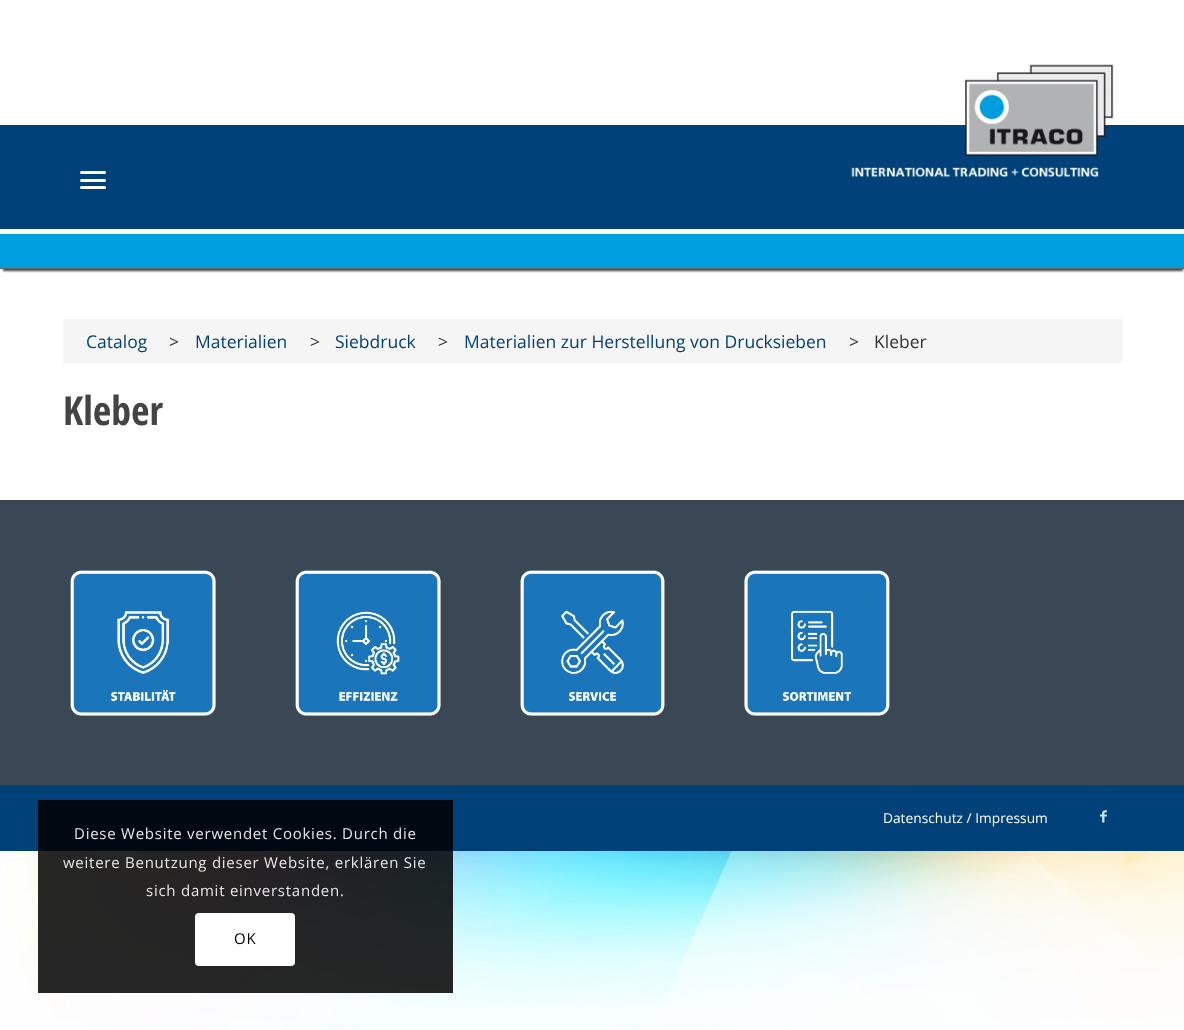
<!DOCTYPE html>
<meta charset="utf-8">
<style>body { margin: 0 } canvas { display: block }</style>
<canvas id="canvas" width="1184" height="1030"></canvas>
<script type="module">
  const canvas = document.getElementById("canvas");
  const ctx = canvas.getContext("2d");
  ctx.miterLimit = 4;
  ctx.fontKerning = "normal";
  async function loadImage(src) {
    const img = new Image();
    img.src = src;
    await img.decode();
    return img;
  }

  ctx.fillStyle = "#ffffff";
  ctx.fillRect(0, 0, 1184, 1030);
  ctx.fillStyle = "#004179";
  ctx.fillRect(0, 125, 1184, 104);
  ctx.save();
  ctx.beginPath();
  ctx.rect(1, 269, 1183, 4);
  ctx.clip();
  ctx.fillStyle = "rgba(0, 0, 0, 0.75)";
  ctx.filter = "blur(1px)";
  ctx.beginPath();
  ctx.rect(3, 163, 1180, 108);
  ctx.fill();
  ctx.filter = "none";
  ctx.restore();
  ctx.fillStyle = "#00a0df";
  ctx.fillRect(0, 234, 1184, 34);
  ctx.fillStyle = "#666666";
  ctx.fillRect(0, 268, 1184, 1);
  ctx.drawImage(await loadImage("img1.png"), 851, 64, 263, 114);
  ctx.fillStyle = "#ffffff";
  ctx.beginPath();
  ctx.roundRect(80, 179, 26, 3, 1.5);
  ctx.fill();
  ctx.beginPath();
  ctx.roundRect(80, 171, 26, 3, 1.5);
  ctx.fill();
  ctx.beginPath();
  ctx.roundRect(80, 186, 26, 3, 1.5);
  ctx.fill();
  ctx.fillStyle = "#f5f5f5";
  ctx.fillRect(63, 319, 1060, 44);
  ctx.font = "17.5px Open Sans";
  ctx.fillStyle = "#004179";
  ctx.fillText("Catalog", 86, 348);
  ctx.fillStyle = "#333333";
  ctx.fillText(">", 169, 348);
  ctx.fillStyle = "#004179";
  ctx.fillText("Materialien", 195, 348);
  ctx.fillStyle = "#333333";
  ctx.fillText(">", 310, 348);
  ctx.fillStyle = "#004179";
  ctx.fillText("Siebdruck", 335, 348);
  ctx.fillStyle = "#333333";
  ctx.fillText(">", 438, 348);
  ctx.fillStyle = "#004179";
  ctx.fillText("Materialien zur Herstellung von Drucksieben", 464, 348);
  ctx.fillStyle = "#333333";
  ctx.fillText(">", 849, 348);
  ctx.fillText("Kleber", 874, 348);
  ctx.font = "bold 40px Open Sans Condensed";
  ctx.fillStyle = "#444444";
  ctx.fillText("Kleber", 63, 425);
  ctx.fillStyle = "#3a4856";
  ctx.fillRect(0, 500, 1184, 285);
  ctx.drawImage(await loadImage("img2.png"), 70, 570, 146, 146);
  ctx.drawImage(await loadImage("img3.png"), 295, 570, 146, 146);
  ctx.drawImage(await loadImage("img4.png"), 520, 570, 145, 146);
  ctx.drawImage(await loadImage("img5.png"), 744, 570, 146, 146);
  ctx.fillStyle = "#004179";
  ctx.fillRect(0, 785, 1184, 66);
  ctx.font = "13.75px Open Sans";
  ctx.fillStyle = "#ffffff";
  ctx.fillText("Datenschutz / Impressum", 883, 823);
  ctx.drawImage(await loadImage("img6.png"), 1100, 810, 7, 13);
  ctx.drawImage(await loadImage("img7.png"), 0, 851, 1184, 179);
  ctx.fillStyle = "rgba(0, 0, 0, 0.85)";
  ctx.fillRect(38, 800, 415, 193);
  ctx.letterSpacing = "0.75px";
  ctx.font = "15px Open Sans";
  ctx.fillStyle = "#e6e6e7";
  ctx.fillText("Diese Website verwendet Cookies. Durch die", 74, 839);
  ctx.fillText("weitere Benutzung dieser Website, erklären Sie", 63, 868);
  ctx.fillText("sich damit einverstanden.", 146, 896);
  ctx.fillStyle = "#ffffff";
  ctx.beginPath();
  ctx.roundRect(195, 913, 100, 53, 4);
  ctx.fill();
  ctx.fillStyle = "#000000";
  ctx.fillText("OK", 234, 944);
</script>
